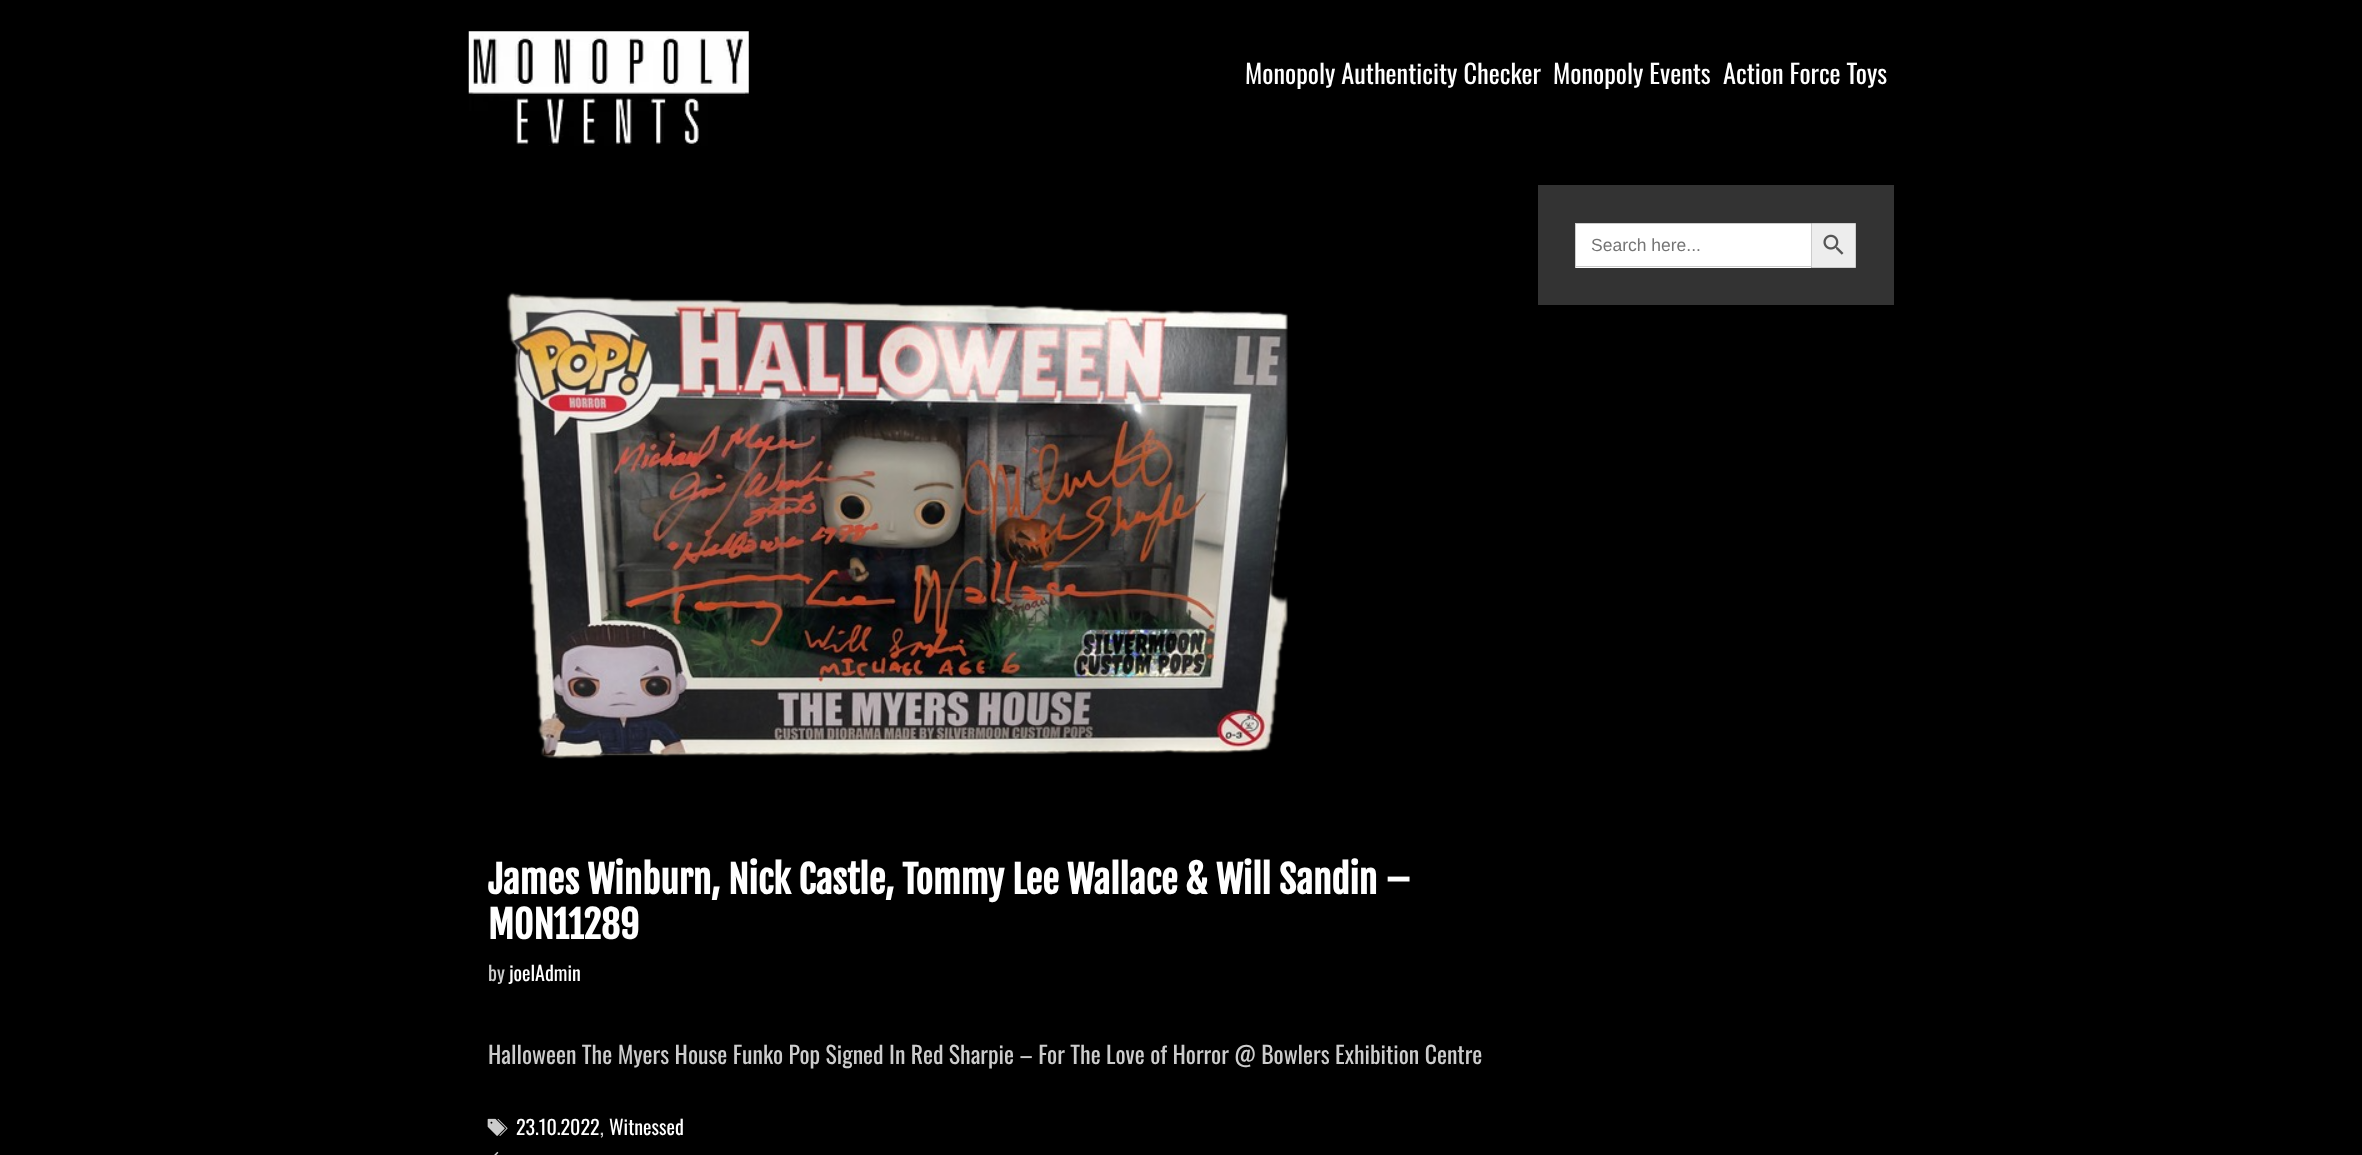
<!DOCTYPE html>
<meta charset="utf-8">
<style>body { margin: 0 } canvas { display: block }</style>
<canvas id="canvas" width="2362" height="1155"></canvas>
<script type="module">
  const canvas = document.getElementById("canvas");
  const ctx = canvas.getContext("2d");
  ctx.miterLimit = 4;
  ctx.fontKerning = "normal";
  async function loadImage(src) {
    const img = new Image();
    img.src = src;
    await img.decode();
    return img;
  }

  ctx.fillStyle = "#000000";
  ctx.fillRect(0, 0, 2362, 1155);
  ctx.drawImage(await loadImage("img1.png"), 468, 31, 281, 115);
  ctx.font = "26.25px Oswald";
  ctx.fillStyle = "#ffffff";
  ctx.fillText("Monopoly Authenticity Checker", 1245, 84);
  ctx.fillText("Monopoly Events", 1553, 84);
  ctx.fillText("Action Force Toys", 1723, 84);
  ctx.fillStyle = "#333333";
  ctx.fillRect(1538, 185, 356, 120);
  ctx.fillStyle = "#ffffff";
  ctx.fillRect(1576, 224, 235, 44);
  ctx.fillStyle = "#cccccc";
  ctx.fillRect(1575, 223, 236, 1);
  ctx.fillRect(1575, 266, 236, 1);
  ctx.fillRect(1575, 223, 1, 45);
  ctx.font = "17.5px Liberation Sans";
  ctx.fillStyle = "#757575";
  ctx.fillText("Search here...", 1591, 251);
  ctx.fillStyle = "#ededed";
  ctx.beginPath();
  ctx.rect(1811.5, 223.5, 44, 44);
  ctx.fill();
  ctx.strokeStyle = "#cccccc";
  ctx.stroke();
  ctx.drawImage(await loadImage("img2.png"), 1823, 234, 21, 21);
  ctx.drawImage(await loadImage("img3.png"), 506, 292, 782, 467);
  ctx.font = "bold 37.5px Fjalla One";
  ctx.fillStyle = "#ffffff";
  ctx.fillText("James Winburn, Nick Castle, Tommy Lee Wallace & Will Sandin –", 488, 894);
  ctx.fillText("MON11289", 488, 939);
  ctx.font = "20px Oswald";
  ctx.fillStyle = "#cccccc";
  ctx.fillText("by", 488, 981);
  ctx.fillStyle = "#ffffff";
  ctx.fillText("joelAdmin", 509, 981);
  ctx.font = "23.75px Oswald";
  ctx.fillStyle = "#cccccc";
  ctx.fillText("Halloween The Myers House Funko Pop Signed In Red Sharpie – For The Love of Horror @ Bowlers Exhibition Centre", 488, 1064);
  ctx.drawImage(await loadImage("img4.png"), 487, 1118, 21, 18);
  ctx.font = "20px Oswald";
  ctx.fillStyle = "#ffffff";
  ctx.fillText("23.10.2022", 516, 1135);
  ctx.fillStyle = "#cccccc";
  ctx.fillText(",", 600, 1135);
  ctx.fillStyle = "#ffffff";
  ctx.fillText("Witnessed", 609, 1135);
  ctx.drawImage(await loadImage("img5.png"), 494, 1151, 5, 4);
</script>
